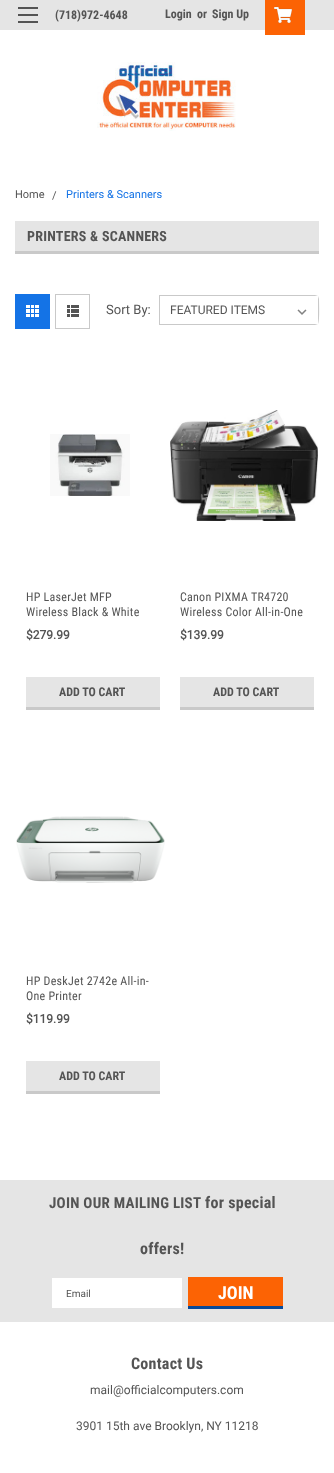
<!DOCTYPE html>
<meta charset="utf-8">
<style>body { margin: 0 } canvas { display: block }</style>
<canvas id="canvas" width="334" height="1473"></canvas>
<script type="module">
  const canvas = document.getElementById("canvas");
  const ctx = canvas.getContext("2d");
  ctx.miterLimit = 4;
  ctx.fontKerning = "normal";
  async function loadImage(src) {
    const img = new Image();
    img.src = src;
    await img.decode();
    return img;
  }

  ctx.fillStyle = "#ffffff";
  ctx.fillRect(0, 0, 334, 1473);
  ctx.fillStyle = "#e5e5e5";
  ctx.fillRect(0, 0, 334, 30);
  ctx.fillStyle = "#545454";
  ctx.fillRect(18, 14, 20, 2);
  ctx.fillRect(18, 7, 20, 2);
  ctx.fillRect(18, 21, 20, 2);
  ctx.font = "bold 12px Roboto Condensed";
  ctx.fillText("(718)972-4648", 55, 19);
  ctx.fillText("Login", 165, 18);
  ctx.fillText("or", 197, 18);
  ctx.fillText("Sign Up", 212, 18);
  ctx.fillStyle = "#fc6304";
  ctx.fillRect(265, 0, 40, 35);
  ctx.drawImage(await loadImage("img1.png"), 274, 6, 18, 17);
  ctx.drawImage(await loadImage("img2.png"), 97, 62, 139, 69);
  ctx.font = "11px Roboto";
  ctx.fillStyle = "#545454";
  ctx.fillText("Home", 15, 198);
  ctx.fillText("/", 52, 199);
  ctx.fillStyle = "#1473e6";
  ctx.fillText("Printers & Scanners", 66, 198);
  ctx.fillStyle = "#e5e5e5";
  ctx.fillRect(15, 221, 304, 30);
  ctx.fillStyle = "#c9c9c9";
  ctx.fillRect(15, 251, 304, 3);
  ctx.letterSpacing = "0.25px";
  ctx.font = "bold 14px Roboto Condensed";
  ctx.fillStyle = "#545454";
  ctx.fillText("PRINTERS & SCANNERS", 27, 241);
  ctx.fillStyle = "#1473e6";
  ctx.fillRect(15, 294, 35, 35);
  ctx.drawImage(await loadImage("img3.png"), 26, 305, 13, 12);
  ctx.strokeStyle = "#c9c9c9";
  ctx.strokeRect(55.5, 294.5, 34, 34);
  ctx.drawImage(await loadImage("img4.png"), 67, 305, 12, 12);
  ctx.letterSpacing = "0px";
  ctx.font = "13px Roboto";
  ctx.fillStyle = "#545454";
  ctx.fillText("Sort By:", 106, 314);
  ctx.drawImage(await loadImage("img5.png"), 297, 309, 10, 6);
  ctx.fillStyle = "#c9c9c9";
  ctx.beginPath();
  ctx.moveTo(159, 295);
  ctx.lineTo(159, 325);
  ctx.lineTo(315, 325);
  ctx.lineTo(318, 324);
  ctx.lineTo(160, 324);
  ctx.lineTo(160, 296);
  ctx.lineTo(318, 296);
  ctx.lineTo(315, 295);
  ctx.closePath();
  ctx.moveTo(319, 299);
  ctx.lineTo(318, 296);
  ctx.lineTo(318, 324);
  ctx.bezierCurveTo(320, 321, 319, 303, 319, 299);
  ctx.closePath();
  ctx.fill("evenodd");
  ctx.font = "12px Roboto";
  ctx.fillStyle = "#545454";
  ctx.fillText("FEATURED ITEMS", 170, 314);
  ctx.drawImage(await loadImage("img6.png"), 50, 434, 80, 62);
  ctx.letterSpacing = "0.25px";
  ctx.font = "12px Roboto Condensed";
  ctx.fillText("HP LaserJet MFP", 26, 601);
  ctx.fillText("Wireless Black & White", 26, 616);
  ctx.letterSpacing = "0px";
  ctx.font = "bold 12px Roboto";
  ctx.fillText("$279.99", 26, 639);
  ctx.fillStyle = "#e5e5e5";
  ctx.fillRect(26, 677, 134, 30);
  ctx.fillStyle = "#c9c9c9";
  ctx.fillRect(26, 707, 134, 3);
  ctx.font = "bold 12px Roboto Condensed";
  ctx.fillStyle = "#545454";
  ctx.fillText("ADD TO CART", 59, 696);
  ctx.drawImage(await loadImage("img7.png"), 170, 410, 148, 111);
  ctx.letterSpacing = "0.25px";
  ctx.font = "12px Roboto Condensed";
  ctx.fillText("Canon PIXMA TR4720", 180, 601);
  ctx.fillText("Wireless Color All-in-One", 180, 616);
  ctx.letterSpacing = "0px";
  ctx.font = "bold 12px Roboto";
  ctx.fillText("$139.99", 180, 639);
  ctx.fillStyle = "#e5e5e5";
  ctx.fillRect(180, 677, 134, 30);
  ctx.fillStyle = "#c9c9c9";
  ctx.fillRect(180, 707, 134, 3);
  ctx.font = "bold 12px Roboto Condensed";
  ctx.fillStyle = "#545454";
  ctx.fillText("ADD TO CART", 213, 696);
  ctx.drawImage(await loadImage("img8.png"), 16, 816, 149, 67);
  ctx.letterSpacing = "0.25px";
  ctx.font = "12px Roboto Condensed";
  ctx.fillText("HP DeskJet 2742e All-in-", 26, 985);
  ctx.fillText("One Printer", 26, 1000);
  ctx.letterSpacing = "0px";
  ctx.font = "bold 12px Roboto";
  ctx.fillText("$119.99", 26, 1023);
  ctx.fillStyle = "#e5e5e5";
  ctx.fillRect(26, 1061, 134, 30);
  ctx.fillStyle = "#c9c9c9";
  ctx.fillRect(26, 1091, 134, 3);
  ctx.font = "bold 12px Roboto Condensed";
  ctx.fillStyle = "#545454";
  ctx.fillText("ADD TO CART", 59, 1080);
  ctx.fillStyle = "#e5e5e5";
  ctx.fillRect(0, 1180, 334, 142);
  ctx.letterSpacing = "0.25px";
  ctx.font = "bold 15px Roboto Condensed";
  ctx.fillStyle = "#545454";
  ctx.fillText("JOIN OUR MAILING LIST", 49, 1208);
  ctx.font = "bold 16px Roboto Condensed";
  ctx.fillText("for special", 205, 1208);
  ctx.fillText("offers!", 140, 1254);
  ctx.fillStyle = "#ffffff";
  ctx.fillRect(52, 1278, 130, 30);
  ctx.letterSpacing = "0px";
  ctx.font = "10px Roboto";
  ctx.fillStyle = "#545454";
  ctx.fillText("Email", 66, 1297);
  ctx.fillStyle = "#fc6304";
  ctx.fillRect(188, 1277, 95, 29);
  ctx.fillStyle = "#074999";
  ctx.fillRect(188, 1306, 95, 3);
  ctx.font = "bold 18px Roboto Condensed";
  ctx.fillStyle = "#ffffff";
  ctx.fillText("JOIN", 218, 1299);
  ctx.letterSpacing = "0.25px";
  ctx.font = "bold 16px Roboto Condensed";
  ctx.fillStyle = "#545454";
  ctx.fillText("Contact Us", 131, 1369);
  ctx.letterSpacing = "0px";
  ctx.font = "12px Roboto";
  ctx.fillText("mail@officialcomputers.com", 90, 1394);
  ctx.fillText("3901 15th ave Brooklyn, NY 11218", 76, 1430);
</script>
